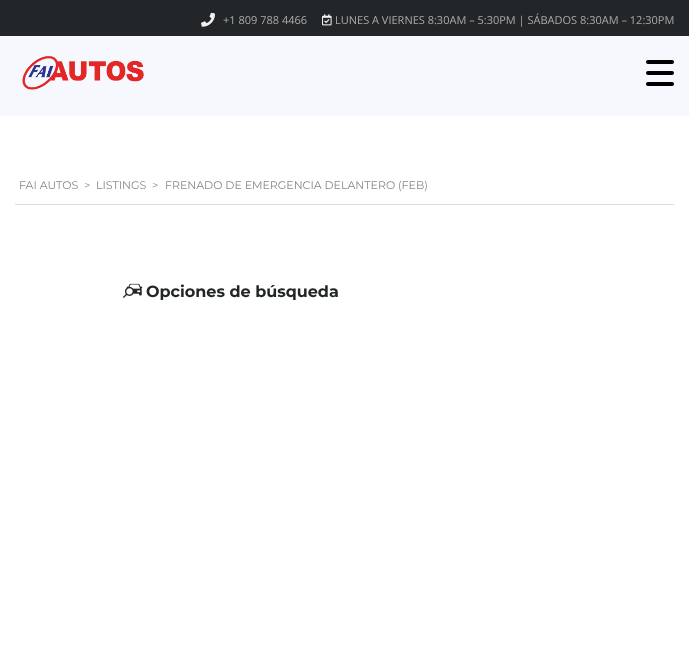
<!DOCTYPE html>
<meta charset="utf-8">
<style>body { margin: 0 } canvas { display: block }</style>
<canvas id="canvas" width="689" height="651"></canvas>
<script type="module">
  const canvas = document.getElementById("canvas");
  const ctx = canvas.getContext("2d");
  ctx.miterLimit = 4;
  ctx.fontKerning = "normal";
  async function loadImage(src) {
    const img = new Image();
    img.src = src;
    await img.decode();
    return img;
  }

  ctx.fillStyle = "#ffffff";
  ctx.fillRect(0, 0, 689, 651);
  ctx.fillStyle = "#232628";
  ctx.fillRect(0, 0, 689, 36);
  ctx.drawImage(await loadImage("img1.png"), 201, 12, 14, 15);
  ctx.font = "11px Open Sans";
  ctx.fillStyle = "#aaaaaa";
  ctx.fillText("+1 809 788 4466", 223, 24);
  ctx.drawImage(await loadImage("img2.png"), 322, 14, 10, 12);
  ctx.fillText("LUNES A VIERNES 8:30AM – 5:30PM | SÁBADOS 8:30AM – 12:30PM", 335, 24);
  ctx.fillStyle = "#f7f8fe";
  ctx.fillRect(0, 36, 689, 80);
  ctx.drawImage(await loadImage("img3.png"), 22, 56, 122, 34);
  ctx.fillStyle = "#000000";
  ctx.beginPath();
  ctx.roundRect(646, 60, 28, 4, 2);
  ctx.fill();
  ctx.beginPath();
  ctx.roundRect(646, 71, 28, 4, 2);
  ctx.fill();
  ctx.beginPath();
  ctx.roundRect(646, 82, 28, 4, 2);
  ctx.fill();
  ctx.fillStyle = "#dddddd";
  ctx.fillRect(15, 204, 659, 1);
  ctx.font = "11px Montserrat";
  ctx.fillStyle = "#888888";
  ctx.fillText("FAI AUTOS", 19, 189);
  ctx.fillText(">", 84, 189);
  ctx.fillText("LISTINGS", 96, 189);
  ctx.fillText(">", 152, 189);
  ctx.fillText("FRENADO DE EMERGENCIA DELANTERO (FEB)", 165, 189);
  ctx.drawImage(await loadImage("img4.png"), 123, 283, 20, 15);
  ctx.font = "bold 16px Montserrat";
  ctx.fillStyle = "#232628";
  ctx.fillText("Opciones de búsqueda", 146, 297);
</script>
